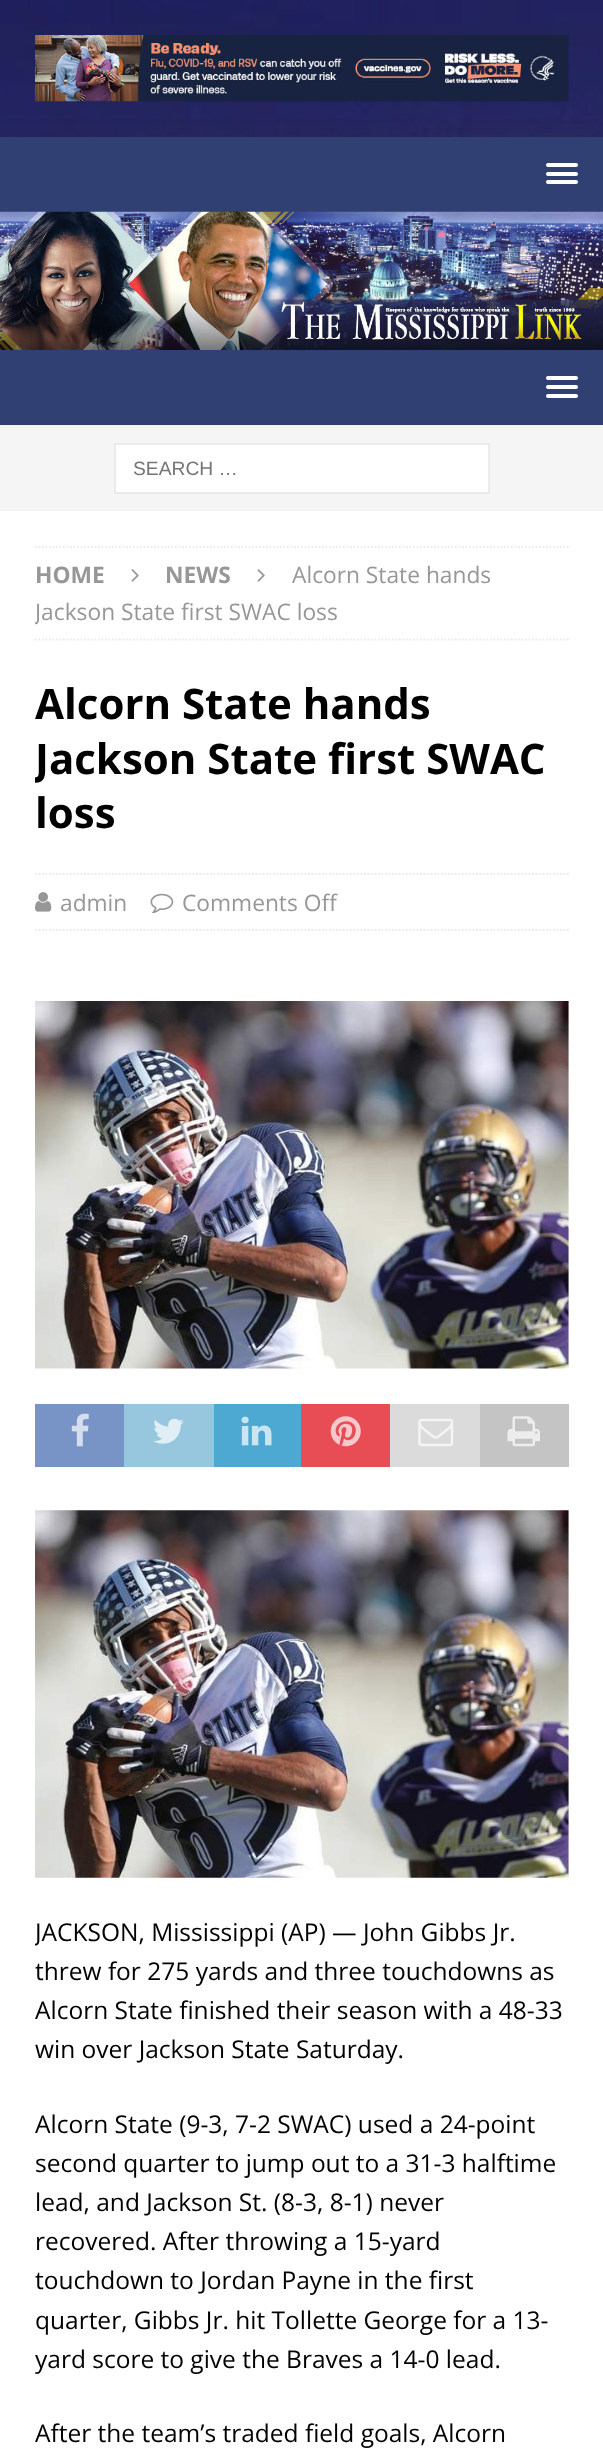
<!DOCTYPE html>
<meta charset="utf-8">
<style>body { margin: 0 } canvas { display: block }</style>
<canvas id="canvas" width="603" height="2453"></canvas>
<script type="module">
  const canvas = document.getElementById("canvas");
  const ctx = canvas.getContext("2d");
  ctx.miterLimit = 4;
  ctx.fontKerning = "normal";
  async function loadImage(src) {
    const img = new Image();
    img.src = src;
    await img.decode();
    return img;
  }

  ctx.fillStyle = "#ffffff";
  ctx.fillRect(0, 0, 603, 2453);
  ctx.drawImage(await loadImage("img1.png"), 0, 0, 603, 137);
  ctx.drawImage(await loadImage("img2.png"), 35, 35, 534, 67);
  ctx.fillStyle = "rgba(50, 50, 50, 0.17)";
  ctx.filter = "blur(9px)";
  ctx.beginPath();
  ctx.rect(0, 137, 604, 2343);
  ctx.fill();
  ctx.filter = "none";
  ctx.fillStyle = "#304073";
  ctx.fillRect(0, 137, 603, 75);
  ctx.fillStyle = "#ffffff";
  ctx.beginPath();
  ctx.roundRect(546, 163, 32, 4, 2);
  ctx.fill();
  ctx.beginPath();
  ctx.roundRect(546, 172, 32, 4, 2);
  ctx.fill();
  ctx.beginPath();
  ctx.roundRect(546, 180, 32, 4, 2);
  ctx.fill();
  ctx.drawImage(await loadImage("img3.png"), 0, 211, 603, 139);
  ctx.fillStyle = "#304073";
  ctx.fillRect(0, 350, 603, 75);
  ctx.fillStyle = "#ffffff";
  ctx.beginPath();
  ctx.roundRect(546, 376, 32, 4, 2);
  ctx.fill();
  ctx.beginPath();
  ctx.roundRect(546, 385, 32, 4, 2);
  ctx.fill();
  ctx.beginPath();
  ctx.roundRect(546, 394, 32, 4, 2);
  ctx.fill();
  ctx.fillStyle = "#f5f5f5";
  ctx.fillRect(0, 425, 603, 86);
  ctx.fillStyle = "#ffffff";
  ctx.beginPath();
  ctx.rect(115, 444, 374, 49);
  ctx.fill();
  ctx.strokeStyle = "#ebebeb";
  ctx.lineWidth = 2;
  ctx.stroke();
  ctx.font = "19.25px Liberation Sans";
  ctx.fillStyle = "#757575";
  ctx.fillText("SEARCH …", 133, 475);
  ctx.fillStyle = "#ffffff";
  ctx.fillRect(0, 511, 603, 1942);
  ctx.beginPath();
  ctx.moveTo(35, 547);
  ctx.lineTo(569, 547);
  ctx.lineWidth = 1.8;
  ctx.setLineDash([1.75, 1.75]);
  ctx.stroke();
  ctx.beginPath();
  ctx.moveTo(35, 639.5);
  ctx.lineTo(569, 639.5);
  ctx.stroke();
  ctx.font = "bold 22.75px Open Sans";
  ctx.fillStyle = "#979797";
  ctx.fillText("HOME", 35, 583);
  ctx.drawImage(await loadImage("img4.png"), 131, 569, 8, 13);
  ctx.fillText("NEWS", 165, 583);
  ctx.drawImage(await loadImage("img4.png"), 257, 569, 8, 13);
  ctx.font = "22.75px Open Sans";
  ctx.fillText("Alcorn State hands", 292, 583);
  ctx.save();
  ctx.beginPath();
  ctx.rect(35, 546, 534, 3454);
  ctx.clip();
  ctx.fillText("Jackson State first SWAC loss", 35, 620);
  ctx.restore();
  ctx.font = "bold 42px Open Sans";
  ctx.fillStyle = "#000000";
  ctx.fillText("Alcorn State hands", 35, 719);
  ctx.save();
  ctx.beginPath();
  ctx.rect(35, 546, 534, 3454);
  ctx.clip();
  ctx.fillText("Jackson State first SWAC", 35, 774);
  ctx.restore();
  ctx.fillText("loss", 35, 828);
  ctx.beginPath();
  ctx.moveTo(35, 874);
  ctx.lineTo(569, 874);
  ctx.stroke();
  ctx.beginPath();
  ctx.moveTo(35, 930);
  ctx.lineTo(569, 930);
  ctx.stroke();
  ctx.drawImage(await loadImage("img5.png"), 35, 892, 17, 20);
  ctx.font = "22.75px Open Sans";
  ctx.fillStyle = "#979797";
  ctx.fillText("admin", 60, 911);
  ctx.drawImage(await loadImage("img6.png"), 150, 893, 24, 21);
  ctx.fillText("Comments Off", 182, 911);
  ctx.drawImage(await loadImage("img7.png"), 35, 1001, 534, 368);
  ctx.fillStyle = "#7893c6";
  ctx.fillRect(35, 1404, 89, 63);
  ctx.drawImage(await loadImage("img8.png"), 71, 1413, 18, 34);
  ctx.fillStyle = "#97c6df";
  ctx.fillRect(124, 1404, 90, 63);
  ctx.drawImage(await loadImage("img9.png"), 153, 1418, 31, 26);
  ctx.fillStyle = "#4da9d2";
  ctx.fillRect(214, 1404, 87, 63);
  ctx.drawImage(await loadImage("img10.png"), 241, 1416, 31, 30);
  ctx.fillStyle = "#e84d56";
  ctx.fillRect(301, 1404, 89, 63);
  ctx.drawImage(await loadImage("img11.png"), 330, 1416, 31, 31);
  ctx.fillStyle = "#dbdbdb";
  ctx.fillRect(390, 1404, 90, 63);
  ctx.drawImage(await loadImage("img12.png"), 418, 1418, 36, 29);
  ctx.fillStyle = "#c4c4c4";
  ctx.fillRect(480, 1404, 89, 63);
  ctx.drawImage(await loadImage("img13.png"), 507, 1416, 33, 31);
  ctx.drawImage(await loadImage("img14.png"), 35, 1510, 534, 368);
  ctx.save();
  ctx.beginPath();
  ctx.rect(35, 546, 534, 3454);
  ctx.clip();
  ctx.font = "24.5px Open Sans";
  ctx.fillStyle = "#000000";
  ctx.fillText("JACKSON, Mississippi (AP) — John Gibbs Jr.", 35, 1941);
  ctx.restore();
  ctx.font = "24.5px Open Sans";
  ctx.fillStyle = "#000000";
  ctx.fillText("threw for 275 yards and three touchdowns as", 35, 1980);
  ctx.fillText("Alcorn State finished their season with a 48-33", 35, 2019);
  ctx.fillText("win over Jackson State Saturday.", 35, 2058);
  ctx.fillText("Alcorn State (9-3, 7-2 SWAC) used a 24-point", 35, 2133);
  ctx.fillText("second quarter to jump out to a 31-3 halftime", 35, 2172);
  ctx.fillText("lead, and Jackson St. (8-3, 8-1) never", 35, 2211);
  ctx.fillText("recovered. After throwing a 15-yard", 35, 2250);
  ctx.fillText("touchdown to Jordan Payne in the first", 35, 2289);
  ctx.fillText("quarter, Gibbs Jr. hit Tollette George for a 13-", 35, 2329);
  ctx.fillText("yard score to give the Braves a 14-0 lead.", 35, 2368);
  ctx.fillText("After the team’s traded field goals, Alcorn", 35, 2442);
</script>
